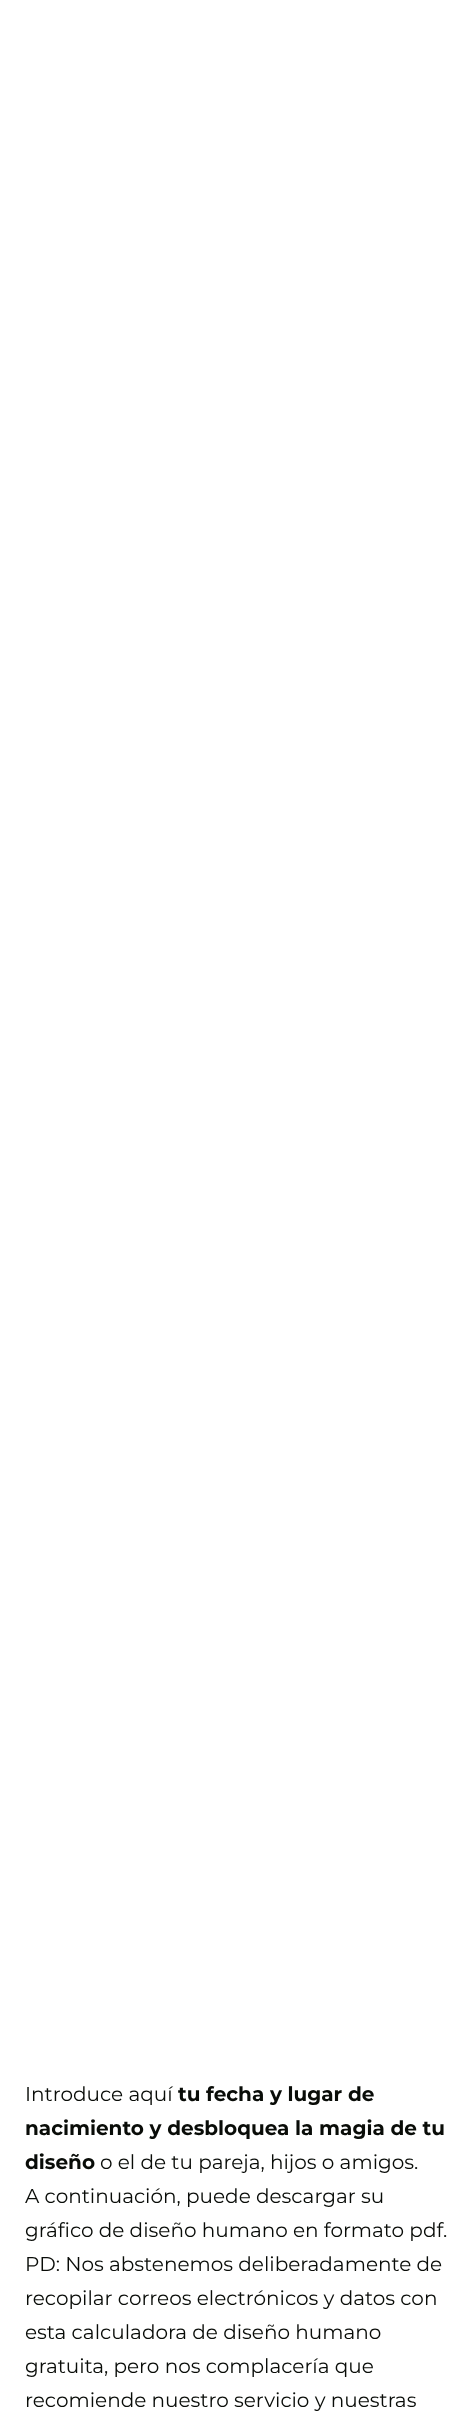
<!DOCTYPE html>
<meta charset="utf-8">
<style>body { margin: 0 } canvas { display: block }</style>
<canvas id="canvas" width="475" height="2413"></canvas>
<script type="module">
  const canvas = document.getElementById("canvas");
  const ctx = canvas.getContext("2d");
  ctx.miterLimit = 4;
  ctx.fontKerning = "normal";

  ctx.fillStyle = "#ffffff";
  ctx.fillRect(0, 0, 475, 2413);
  ctx.font = "20px Montserrat";
  ctx.fillStyle = "#090c08";
  ctx.fillText("Introduce aquí", 25, 2101);
  ctx.font = "bold 20px Montserrat";
  ctx.fillText("tu fecha y lugar de", 178, 2101);
  ctx.fillText("nacimiento y desbloquea la magia de tu", 25, 2135);
  ctx.fillText("diseño", 25, 2169);
  ctx.font = "20px Montserrat";
  ctx.fillText("o el de tu pareja, hijos o amigos.", 100, 2169);
  ctx.fillText("A continuación, puede descargar su", 25, 2203);
  ctx.fillText("gráfico de diseño humano en formato pdf.", 25, 2237);
  ctx.fillText("PD: Nos abstenemos deliberadamente de", 25, 2271);
  ctx.fillText("recopilar correos electrónicos y datos con", 25, 2305);
  ctx.fillText("esta calculadora de diseño humano", 25, 2339);
  ctx.fillText("gratuita, pero nos complacería que", 25, 2373);
  ctx.fillText("recomiende nuestro servicio y nuestras", 25, 2407);
</script>
